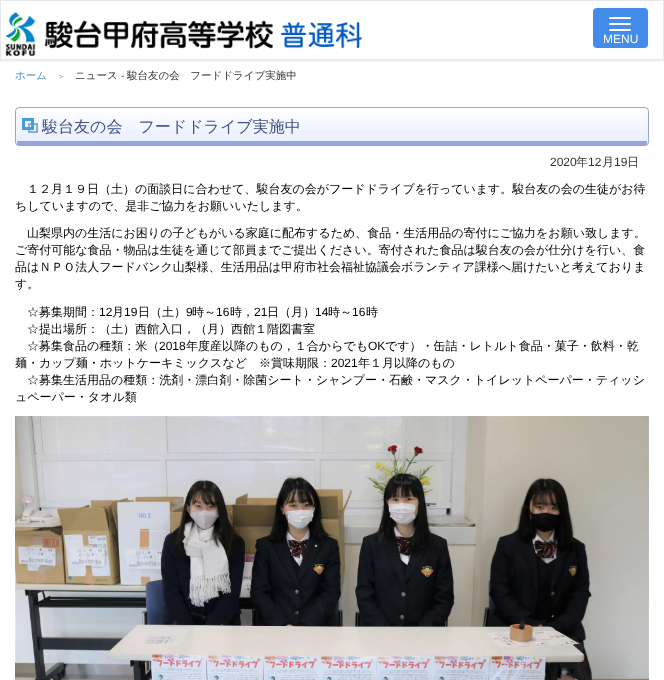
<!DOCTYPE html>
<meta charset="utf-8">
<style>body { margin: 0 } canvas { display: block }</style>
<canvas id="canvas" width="664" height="680"></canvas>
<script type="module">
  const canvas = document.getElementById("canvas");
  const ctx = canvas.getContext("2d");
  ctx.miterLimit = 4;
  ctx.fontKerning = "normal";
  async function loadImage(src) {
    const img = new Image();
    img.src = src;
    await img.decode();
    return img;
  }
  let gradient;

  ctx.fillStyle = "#ffffff";
  ctx.fillRect(0, 0, 664, 680);
  ctx.save();
  ctx.beginPath();
  ctx.rect(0, 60, 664, 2);
  ctx.clip();
  ctx.fillStyle = "rgba(0, 0, 0, 0.1)";
  ctx.filter = "blur(1.5px)";
  ctx.beginPath();
  ctx.rect(-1, -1, 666, 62);
  ctx.fill();
  ctx.filter = "none";
  ctx.restore();
  ctx.strokeStyle = "#e7e7e7";
  ctx.strokeRect(0.5, 0.5, 663, 59);
  ctx.drawImage(await loadImage("img1.png"), 5, 12, 357, 45);
  ctx.fillStyle = "#448ce9";
  ctx.beginPath();
  ctx.roundRect(593, 8, 55, 40, 4);
  ctx.fill();
  ctx.fillStyle = "#ffffff";
  ctx.beginPath();
  ctx.roundRect(609, 17, 22, 2, 1);
  ctx.fill();
  ctx.beginPath();
  ctx.roundRect(609, 23, 22, 2, 1);
  ctx.fill();
  ctx.beginPath();
  ctx.roundRect(609, 29, 22, 2, 1);
  ctx.fill();
  ctx.font = "12px Liberation Sans";
  ctx.fillText("MENU", 603, 43);
  ctx.font = "500 10.5px WenQuanYi Zen Hei";
  ctx.fillStyle = "#428bca";
  ctx.fillText("ホーム", 15, 79);
  ctx.font = "500 8px WenQuanYi Zen Hei";
  ctx.fillStyle = "#8a8a7b";
  ctx.fillText("＞", 57, 79);
  ctx.font = "500 10.5px WenQuanYi Zen Hei";
  ctx.fillStyle = "#333333";
  ctx.fillText("ニュース", 75, 79);
  ctx.font = "10.5px Liberation Sans";
  ctx.fillText("-", 121, 79);
  ctx.font = "500 10.5px WenQuanYi Zen Hei";
  ctx.fillText("駿台友の会　フードドライブ実施中", 127, 79);
  gradient = ctx.createLinearGradient(332, 108, 332, 141);
  gradient.addColorStop(0, "#ffffff");
  gradient.addColorStop(1, "#eaefff");
  ctx.fillStyle = gradient;
  ctx.beginPath();
  ctx.moveTo(19, 108);
  ctx.lineTo(645, 108);
  ctx.bezierCurveTo(647, 108, 648, 109, 648, 111);
  ctx.lineTo(648, 141);
  ctx.lineTo(16, 141);
  ctx.lineTo(16, 111);
  ctx.bezierCurveTo(16, 109, 17, 108, 19, 108);
  ctx.closePath();
  ctx.fill();
  ctx.beginPath();
  ctx.roundRect(15.5, 107.5, 633, 38, 3.5);
  ctx.strokeStyle = "#95a5d5";
  ctx.stroke();
  ctx.fillStyle = "#95a5d5";
  ctx.fillRect(17, 141, 630, 4);
  ctx.strokeStyle = "#7eb1d7";
  ctx.lineWidth = 2;
  ctx.strokeRect(29, 124, 8, 8);
  ctx.strokeStyle = "#489bdb";
  ctx.lineWidth = 3;
  ctx.strokeRect(23.5, 119.5, 9, 9);
  ctx.font = "500 16px WenQuanYi Zen Hei";
  ctx.fillStyle = "#3f5188";
  ctx.fillText("駿台友の会　フードドライブ実施中", 42, 132);
  ctx.font = "12px Liberation Sans";
  ctx.fillStyle = "#333333";
  ctx.fillText("2020", 550, 166);
  ctx.font = "500 12px WenQuanYi Zen Hei";
  ctx.fillText("年", 576, 166);
  ctx.font = "12px Liberation Sans";
  ctx.fillText("12", 588, 166);
  ctx.font = "500 12px WenQuanYi Zen Hei";
  ctx.fillText("月", 602, 166);
  ctx.font = "12px Liberation Sans";
  ctx.fillText("19", 614, 166);
  ctx.font = "500 12px WenQuanYi Zen Hei";
  ctx.fillText("日", 627, 166);
  ctx.fillStyle = "#000000";
  ctx.fillText("１２月１９日（土）の面談日に合わせて、駿台友の会がフードドライブを行っています。駿台友の会の生徒がお待", 27, 193);
  ctx.fillText("ちしていますので、是非ご協力をお願いいたします。", 15, 210);
  ctx.fillText("山梨県内の生活にお困りの子どもがいる家庭に配布するため、食品・生活用品の寄付にご協力をお願い致します。", 27, 237);
  ctx.fillText("ご寄付可能な食品・物品は生徒を通じて部員までご提出ください。寄付された食品は駿台友の会が仕分けを行い、食", 15, 254);
  ctx.fillText("品はＮＰＯ法人フードバンク山梨様、生活用品は甲府市社会福祉協議会ボランティア課様へ届けたいと考えておりま", 15, 271);
  ctx.fillText("す。", 15, 288);
  ctx.fillText("☆募集期間：", 27, 316);
  ctx.font = "12px Liberation Sans";
  ctx.fillText("12", 99, 316);
  ctx.font = "500 12px WenQuanYi Zen Hei";
  ctx.fillText("月", 112, 316);
  ctx.font = "12px Liberation Sans";
  ctx.fillText("19", 124, 316);
  ctx.font = "500 12px WenQuanYi Zen Hei";
  ctx.fillText("日（土）", 138, 316);
  ctx.font = "12px Liberation Sans";
  ctx.fillText("9", 186, 316);
  ctx.font = "500 12px WenQuanYi Zen Hei";
  ctx.fillText("時～", 192, 316);
  ctx.font = "12px Liberation Sans";
  ctx.fillText("16", 216, 316);
  ctx.font = "500 12px WenQuanYi Zen Hei";
  ctx.fillText("時，", 230, 316);
  ctx.font = "12px Liberation Sans";
  ctx.fillText("21", 254, 316);
  ctx.font = "500 12px WenQuanYi Zen Hei";
  ctx.fillText("日（月）", 267, 316);
  ctx.font = "12px Liberation Sans";
  ctx.fillText("14", 315, 316);
  ctx.font = "500 12px WenQuanYi Zen Hei";
  ctx.fillText("時～", 328, 316);
  ctx.font = "12px Liberation Sans";
  ctx.fillText("16", 352, 316);
  ctx.font = "500 12px WenQuanYi Zen Hei";
  ctx.fillText("時", 366, 316);
  ctx.fillText("☆提出場所：（土）西館入口，（月）西館１階図書室", 27, 333);
  ctx.fillText("☆募集食品の種類：米（", 27, 350);
  ctx.font = "12px Liberation Sans";
  ctx.fillText("2018", 159, 350);
  ctx.font = "500 12px WenQuanYi Zen Hei";
  ctx.fillText("年度産以降のもの，１合からでも", 186, 350);
  ctx.font = "12px Liberation Sans";
  ctx.fillText("OK", 368, 350);
  ctx.font = "500 12px WenQuanYi Zen Hei";
  ctx.fillText("です）・缶詰・レトルト食品・菓子・飲料・乾", 385, 350);
  ctx.fillText("麺・カップ麺・ホットケーキミックスなど　※賞味期限：", 15, 367);
  ctx.font = "12px Liberation Sans";
  ctx.fillText("2021", 331, 367);
  ctx.font = "500 12px WenQuanYi Zen Hei";
  ctx.fillText("年１月以降のもの", 358, 367);
  ctx.fillText("☆募集生活用品の種類：洗剤・漂白剤・除菌シート・シャンプー・石鹸・マスク・トイレットペーパー・ティッシ", 27, 384);
  ctx.fillText("ュペーパー・タオル類", 15, 401);
  ctx.drawImage(await loadImage("img2.png"), 15, 416, 634, 264);
</script>
